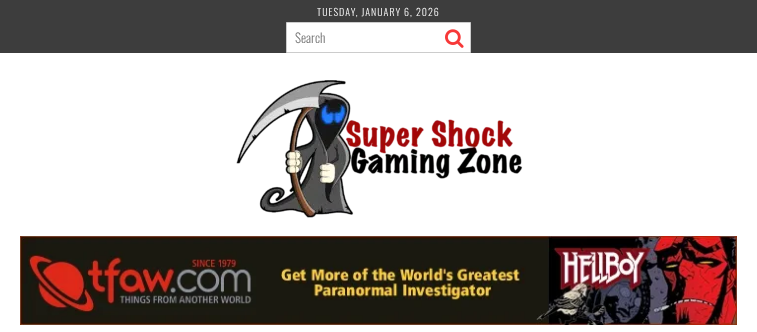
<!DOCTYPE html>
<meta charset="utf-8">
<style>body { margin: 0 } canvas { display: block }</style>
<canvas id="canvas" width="757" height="332"></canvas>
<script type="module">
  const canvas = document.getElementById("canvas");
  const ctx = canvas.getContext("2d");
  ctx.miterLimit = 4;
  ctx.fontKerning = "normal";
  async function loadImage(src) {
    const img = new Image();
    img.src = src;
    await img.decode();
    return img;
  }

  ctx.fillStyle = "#ffffff";
  ctx.fillRect(0, 0, 757, 332);
  ctx.fillStyle = "#3d3d3d";
  ctx.fillRect(0, 0, 757, 53);
  ctx.letterSpacing = "1px";
  ctx.font = "300 10px Oswald";
  ctx.fillStyle = "#ffffff";
  ctx.fillText("TUESDAY, JANUARY 6, 2026", 317, 16);
  ctx.beginPath();
  ctx.rect(286.5, 22.5, 184, 30);
  ctx.fill();
  ctx.strokeStyle = "#cccccc";
  ctx.stroke();
  ctx.letterSpacing = "0px";
  ctx.font = "300 13px Oswald";
  ctx.fillStyle = "#757575";
  ctx.fillText("Search", 295, 43);
  ctx.drawImage(await loadImage("img1.png"), 445, 29, 19, 19);
  ctx.drawImage(await loadImage("img2.png"), 236, 80, 287, 138);
  ctx.drawImage(await loadImage("img3.png"), 20, 236, 717, 89);
</script>
